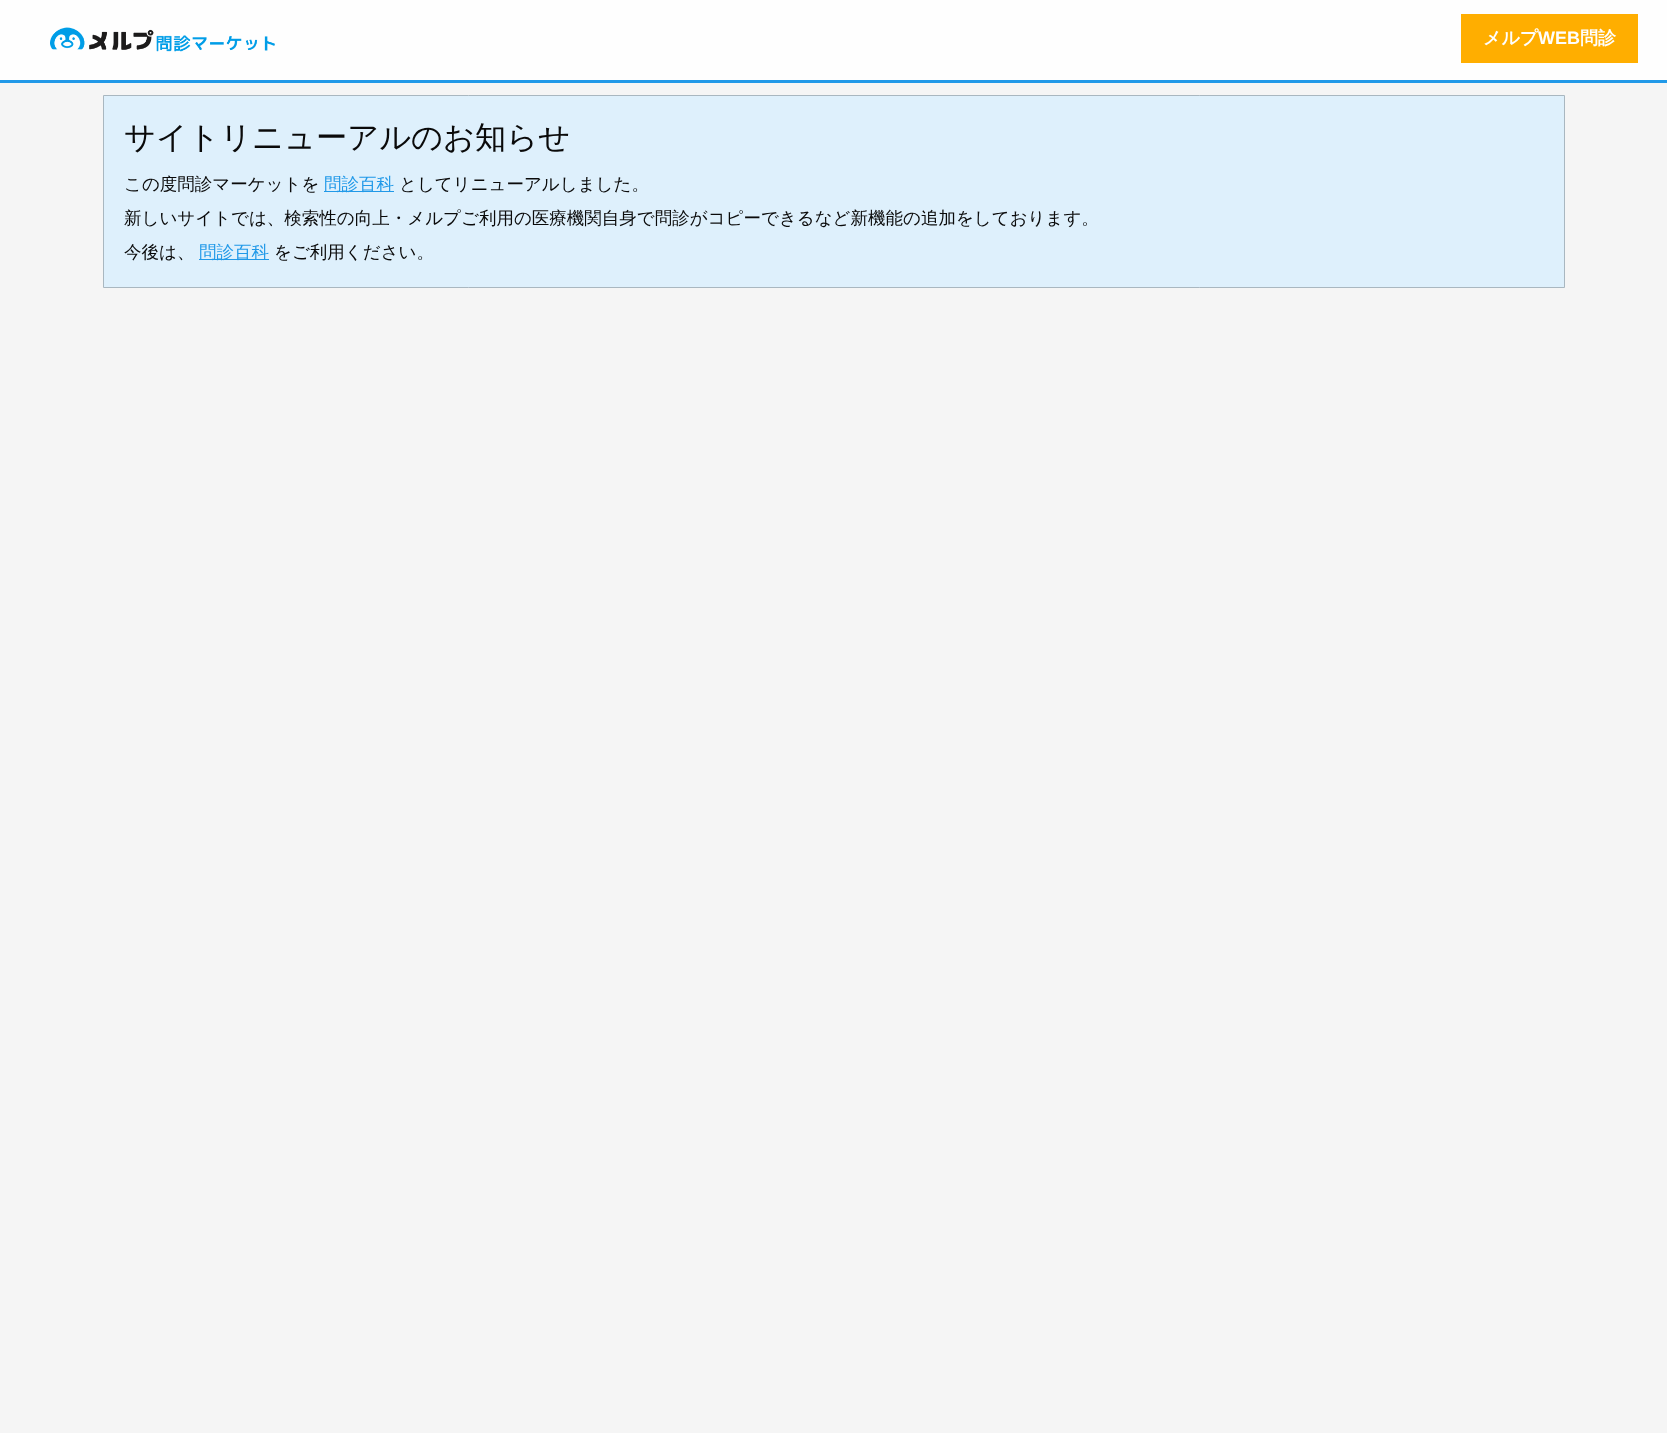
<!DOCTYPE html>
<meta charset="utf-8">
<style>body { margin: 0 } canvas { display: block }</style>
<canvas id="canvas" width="1667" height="1433"></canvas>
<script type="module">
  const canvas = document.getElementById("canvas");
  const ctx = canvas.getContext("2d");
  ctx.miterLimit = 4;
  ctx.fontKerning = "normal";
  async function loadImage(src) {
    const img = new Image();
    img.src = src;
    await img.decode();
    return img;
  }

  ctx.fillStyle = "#f5f5f5";
  ctx.fillRect(0, 0, 1667, 1433);
  ctx.fillStyle = "#fefefe";
  ctx.fillRect(0, 0, 1667, 80);
  ctx.fillStyle = "#2199e8";
  ctx.fillRect(0, 80, 1667, 3);
  ctx.drawImage(await loadImage("img1.png"), 50, 27, 225, 25);
  ctx.fillStyle = "#ffae00";
  ctx.fillRect(1461, 14, 177, 49);
  ctx.font = "bold 18px WenQuanYi Zen Hei";
  ctx.fillStyle = "#fefefe";
  ctx.fillText("メルプ", 1483, 44);
  ctx.font = "bold 18px Liberation Sans";
  ctx.fillText("WEB", 1538, 44);
  ctx.font = "bold 18px WenQuanYi Zen Hei";
  ctx.fillText("問診", 1580, 44);
  ctx.fillStyle = "#def0fc";
  ctx.beginPath();
  ctx.rect(103.5, 95.5, 1461, 192);
  ctx.fill();
  ctx.strokeStyle = "#a9b7c0";
  ctx.stroke();
  ctx.font = "500 31.25px WenQuanYi Zen Hei";
  ctx.fillStyle = "#0a0a0a";
  ctx.fillText("サイトリニューアルのお知らせ", 124, 148);
  ctx.font = "500 17.5px WenQuanYi Zen Hei";
  ctx.fillText("この度問診マーケットを", 124, 190);
  ctx.fillStyle = "#2199e8";
  ctx.fillRect(324, 191, 70, 1);
  ctx.fillText("問診百科", 324, 190);
  ctx.fillStyle = "#0a0a0a";
  ctx.fillText("としてリニューアルしました。", 399, 190);
  ctx.fillText("新しいサイトでは、検索性の向上・メルプご利用の医療機関自身で問診がコピーできるなど新機能の追加をしております。", 124, 224);
  ctx.fillText("今後は、", 124, 258);
  ctx.fillStyle = "#2199e8";
  ctx.fillRect(199, 259, 70, 1);
  ctx.fillText("問診百科", 199, 258);
  ctx.fillStyle = "#0a0a0a";
  ctx.fillText("をご利用ください。", 274, 258);
</script>
